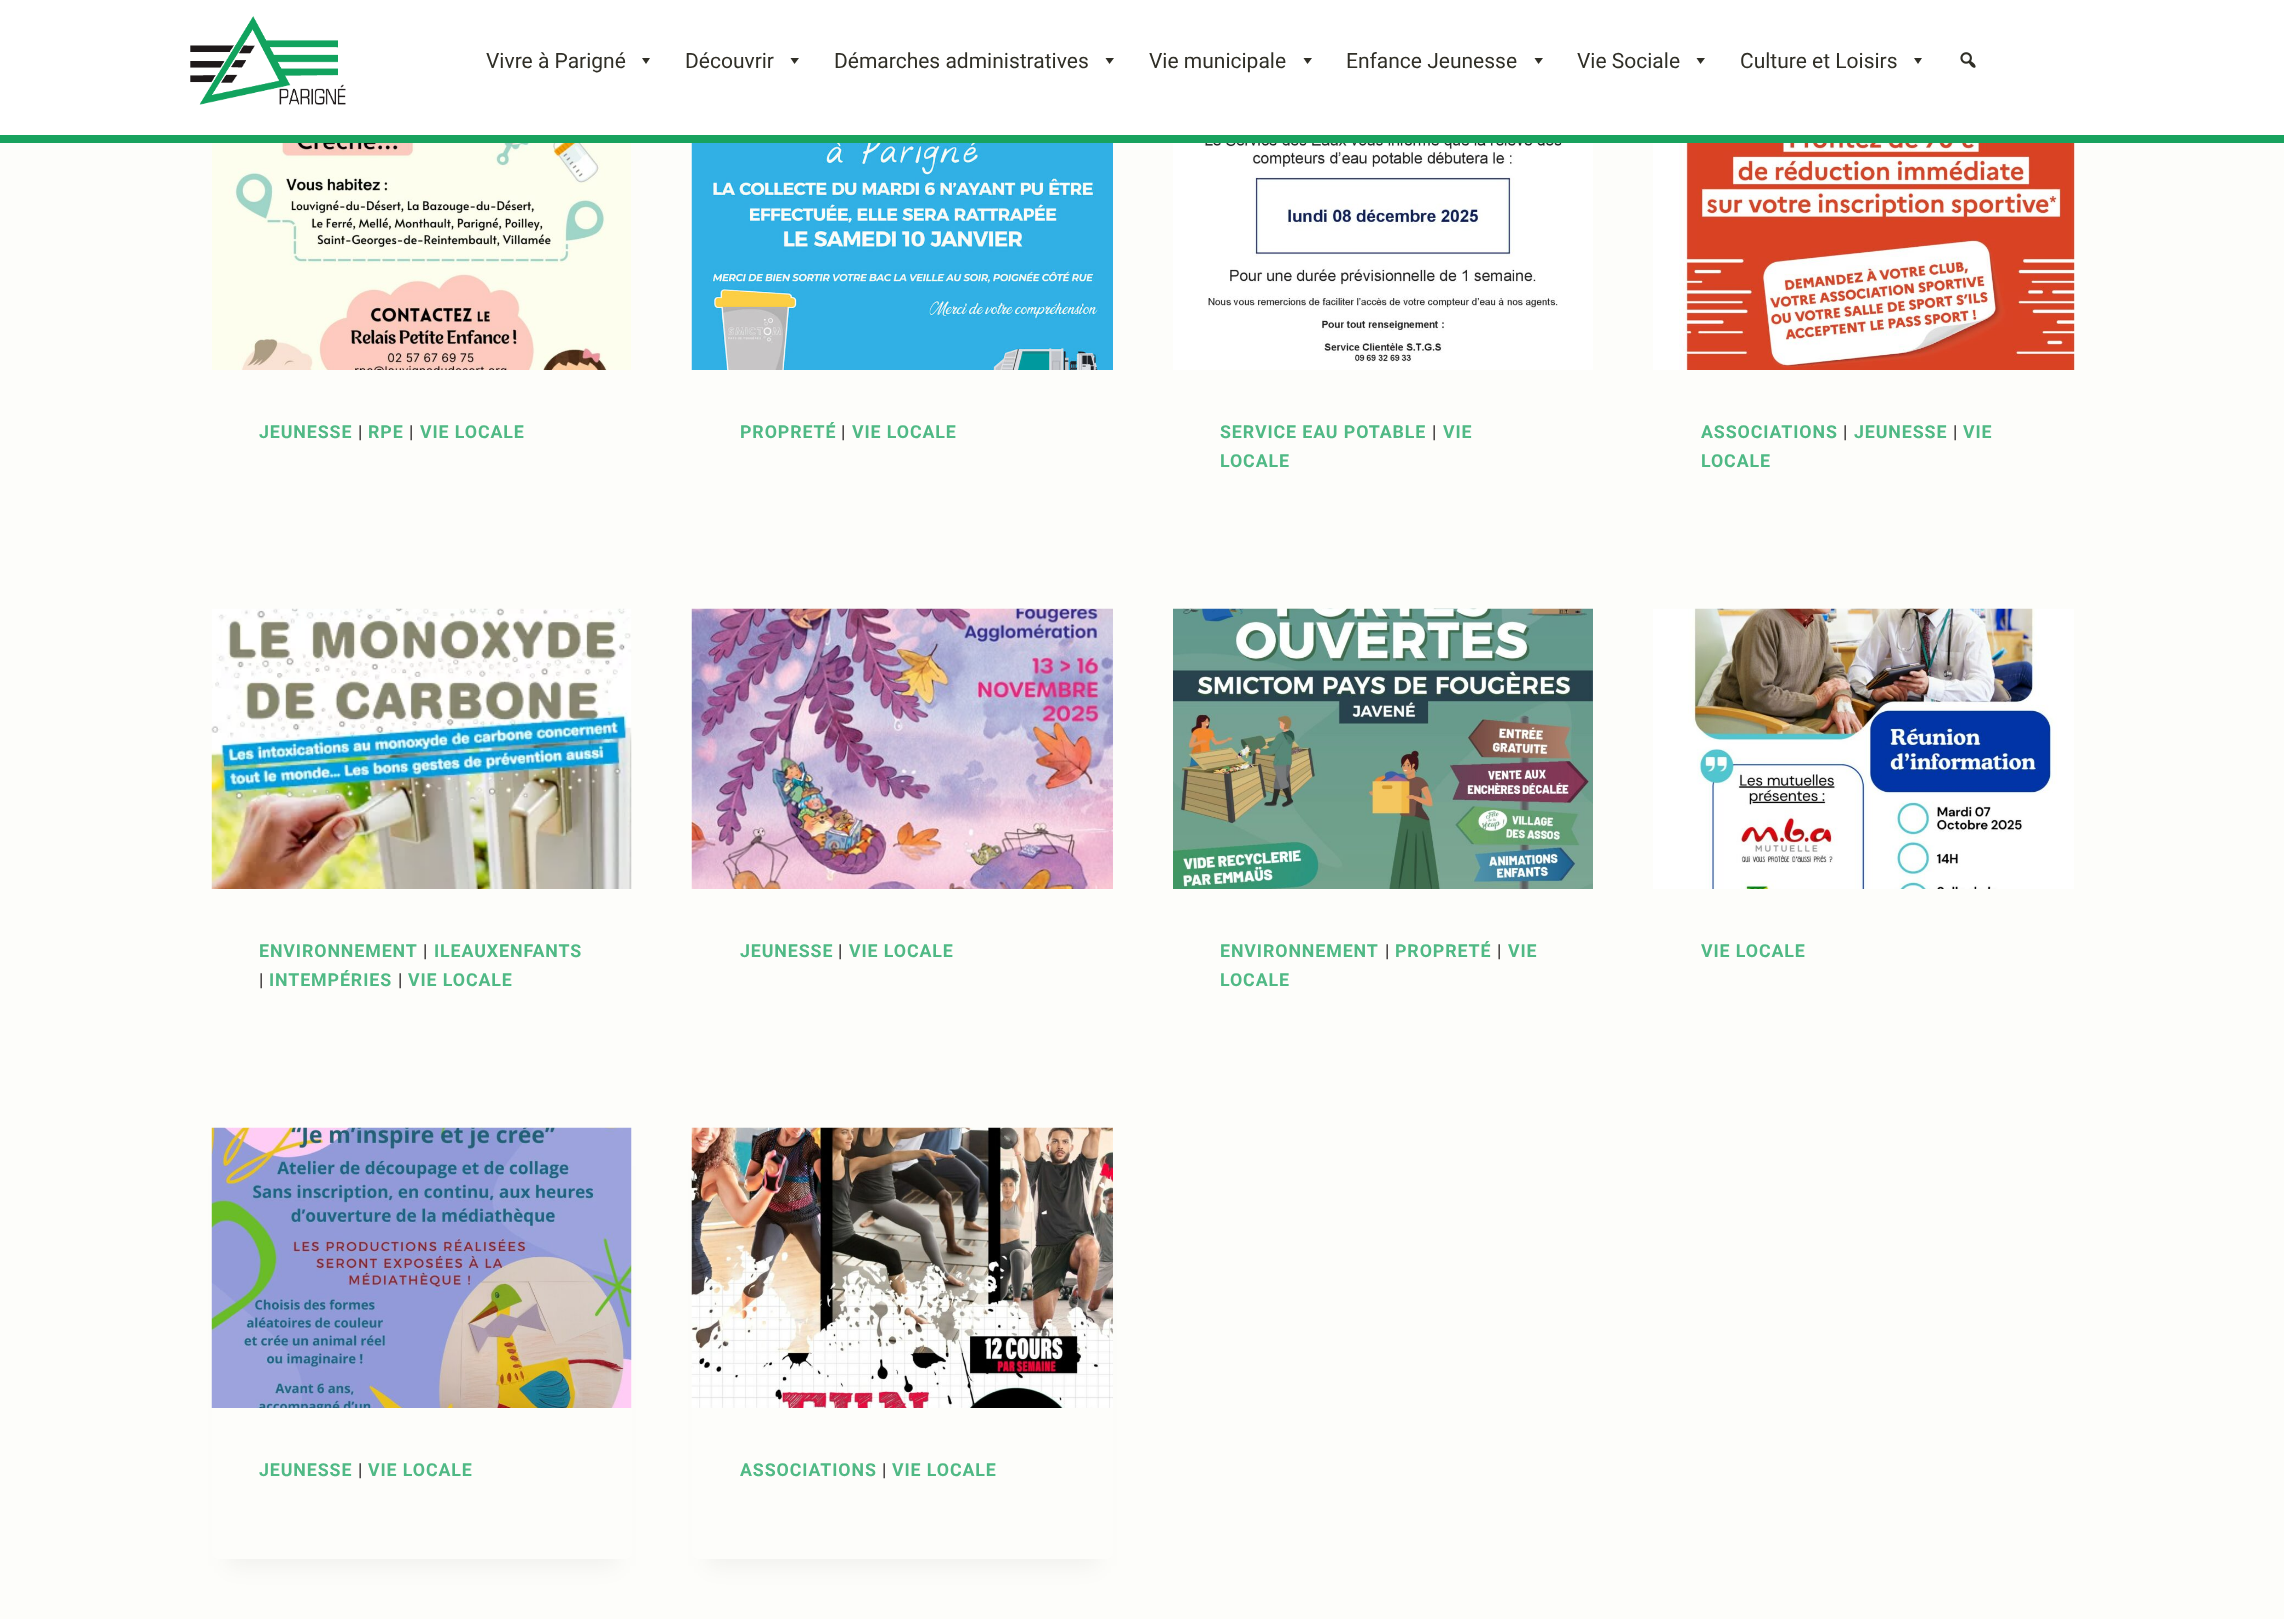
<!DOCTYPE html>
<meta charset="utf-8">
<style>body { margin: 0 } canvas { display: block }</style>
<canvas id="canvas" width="2284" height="1619"></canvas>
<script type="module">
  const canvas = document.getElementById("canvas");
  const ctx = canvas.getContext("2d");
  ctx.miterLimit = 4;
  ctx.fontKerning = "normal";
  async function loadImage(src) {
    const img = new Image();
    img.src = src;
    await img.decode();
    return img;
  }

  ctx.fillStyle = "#fdfdfa";
  ctx.fillRect(0, 0, 2284, 1619);
  ctx.fillStyle = "#ffffff";
  ctx.fillRect(0, 0, 2284, 135);
  ctx.fillStyle = "#18a25e";
  ctx.fillRect(0, 135, 2284, 8);
  ctx.drawImage(await loadImage("img1.png"), 190, 16, 156, 89);
  ctx.font = "21px Roboto";
  ctx.fillStyle = "#302f27";
  ctx.fillText("Vivre à Parigné", 486, 68);
  ctx.beginPath();
  ctx.moveTo(650, 58);
  ctx.lineTo(646, 64);
  ctx.lineTo(642, 58);
  ctx.closePath();
  ctx.fill();
  ctx.fillText("Découvrir", 685, 68);
  ctx.beginPath();
  ctx.moveTo(799, 58);
  ctx.lineTo(794.5, 64);
  ctx.lineTo(790.5, 58);
  ctx.closePath();
  ctx.fill();
  ctx.fillText("Démarches administratives", 834, 68);
  ctx.beginPath();
  ctx.moveTo(1114, 58);
  ctx.lineTo(1109.5, 64);
  ctx.lineTo(1105.5, 58);
  ctx.closePath();
  ctx.fill();
  ctx.fillText("Vie municipale", 1149, 68);
  ctx.beginPath();
  ctx.moveTo(1312, 58);
  ctx.lineTo(1307.5, 64);
  ctx.lineTo(1303.5, 58);
  ctx.closePath();
  ctx.fill();
  ctx.fillText("Enfance Jeunesse", 1346, 68);
  ctx.beginPath();
  ctx.moveTo(1543, 58);
  ctx.lineTo(1538.5, 64);
  ctx.lineTo(1534.5, 58);
  ctx.closePath();
  ctx.fill();
  ctx.fillText("Vie Sociale", 1577, 68);
  ctx.beginPath();
  ctx.moveTo(1705, 58);
  ctx.lineTo(1700.5, 64);
  ctx.lineTo(1696.5, 58);
  ctx.closePath();
  ctx.fill();
  ctx.fillText("Culture et Loisirs", 1740, 68);
  ctx.beginPath();
  ctx.moveTo(1922, 58);
  ctx.lineTo(1918, 64);
  ctx.lineTo(1914, 58);
  ctx.closePath();
  ctx.fill();
  ctx.drawImage(await loadImage("img2.png"), 1960, 52, 16, 16);
  ctx.drawImage(await loadImage("img3.png"), 212, 143, 419, 227);
  ctx.letterSpacing = "0.9px";
  ctx.font = "bold 17.8px Roboto";
  ctx.fillStyle = "#50b985";
  ctx.fillText("JEUNESSE", 259, 438);
  ctx.font = "17.8px Roboto";
  ctx.fillStyle = "#231f20";
  ctx.fillText("|", 358, 438);
  ctx.font = "bold 17.8px Roboto";
  ctx.fillStyle = "#50b985";
  ctx.fillText("RPE", 368, 438);
  ctx.font = "17.8px Roboto";
  ctx.fillStyle = "#231f20";
  ctx.fillText("|", 409, 438);
  ctx.font = "bold 17.8px Roboto";
  ctx.fillStyle = "#50b985";
  ctx.fillText("VIE LOCALE", 420, 438);
  ctx.drawImage(await loadImage("img4.png"), 691, 143, 422, 227);
  ctx.fillText("PROPRETÉ", 740, 438);
  ctx.font = "17.8px Roboto";
  ctx.fillStyle = "#231f20";
  ctx.fillText("|", 841, 438);
  ctx.font = "bold 17.8px Roboto";
  ctx.fillStyle = "#50b985";
  ctx.fillText("VIE LOCALE", 852, 438);
  ctx.drawImage(await loadImage("img5.png"), 1173, 143, 420, 227);
  ctx.fillText("SERVICE EAU POTABLE", 1220, 438);
  ctx.font = "17.8px Roboto";
  ctx.fillStyle = "#231f20";
  ctx.fillText("|", 1432, 438);
  ctx.font = "bold 17.8px Roboto";
  ctx.fillStyle = "#50b985";
  ctx.fillText("VIE", 1443, 438);
  ctx.fillText("LOCALE", 1220, 467);
  ctx.drawImage(await loadImage("img6.png"), 1653, 143, 422, 227);
  ctx.fillText("ASSOCIATIONS", 1701, 438);
  ctx.font = "17.8px Roboto";
  ctx.fillStyle = "#231f20";
  ctx.fillText("|", 1843, 438);
  ctx.font = "bold 17.8px Roboto";
  ctx.fillStyle = "#50b985";
  ctx.fillText("JEUNESSE", 1854, 438);
  ctx.font = "17.8px Roboto";
  ctx.fillStyle = "#231f20";
  ctx.fillText("|", 1953, 438);
  ctx.font = "bold 17.8px Roboto";
  ctx.fillStyle = "#50b985";
  ctx.fillText("VIE", 1963, 438);
  ctx.fillText("LOCALE", 1701, 467);
  ctx.drawImage(await loadImage("img7.png"), 211, 608, 421, 281);
  ctx.fillText("ENVIRONNEMENT", 259, 957);
  ctx.font = "17.8px Roboto";
  ctx.fillStyle = "#231f20";
  ctx.fillText("|", 423, 957);
  ctx.font = "bold 17.8px Roboto";
  ctx.fillStyle = "#50b985";
  ctx.fillText("ILEAUXENFANTS", 434, 957);
  ctx.font = "17.8px Roboto";
  ctx.fillStyle = "#231f20";
  ctx.fillText("|", 259, 986);
  ctx.font = "bold 17.8px Roboto";
  ctx.fillStyle = "#50b985";
  ctx.fillText("INTEMPÉRIES", 269, 986);
  ctx.font = "17.8px Roboto";
  ctx.fillStyle = "#231f20";
  ctx.fillText("|", 398, 986);
  ctx.font = "bold 17.8px Roboto";
  ctx.fillStyle = "#50b985";
  ctx.fillText("VIE LOCALE", 408, 986);
  ctx.drawImage(await loadImage("img8.png"), 691, 608, 422, 281);
  ctx.fillText("JEUNESSE", 740, 957);
  ctx.font = "17.8px Roboto";
  ctx.fillStyle = "#231f20";
  ctx.fillText("|", 838, 957);
  ctx.font = "bold 17.8px Roboto";
  ctx.fillStyle = "#50b985";
  ctx.fillText("VIE LOCALE", 849, 957);
  ctx.drawImage(await loadImage("img9.png"), 1173, 608, 420, 281);
  ctx.fillText("ENVIRONNEMENT", 1220, 957);
  ctx.font = "17.8px Roboto";
  ctx.fillStyle = "#231f20";
  ctx.fillText("|", 1385, 957);
  ctx.font = "bold 17.8px Roboto";
  ctx.fillStyle = "#50b985";
  ctx.fillText("PROPRETÉ", 1395, 957);
  ctx.font = "17.8px Roboto";
  ctx.fillStyle = "#231f20";
  ctx.fillText("|", 1497, 957);
  ctx.font = "bold 17.8px Roboto";
  ctx.fillStyle = "#50b985";
  ctx.fillText("VIE", 1508, 957);
  ctx.fillText("LOCALE", 1220, 986);
  ctx.drawImage(await loadImage("img10.png"), 1653, 608, 421, 281);
  ctx.fillText("VIE LOCALE", 1701, 957);
  ctx.fillStyle = "rgba(0, 0, 0, 0.05)";
  ctx.filter = "blur(11px)";
  ctx.beginPath();
  ctx.rect(227, 1166, 390, 400);
  ctx.fill();
  ctx.filter = "none";
  ctx.fillStyle = "#fdfdfa";
  ctx.beginPath();
  ctx.roundRect(212, 1128, 420, 431, 6);
  ctx.fill();
  ctx.drawImage(await loadImage("img11.png"), 211, 1127, 421, 281);
  ctx.fillStyle = "#50b985";
  ctx.fillText("JEUNESSE", 259, 1476);
  ctx.font = "17.8px Roboto";
  ctx.fillStyle = "#231f20";
  ctx.fillText("|", 358, 1476);
  ctx.font = "bold 17.8px Roboto";
  ctx.fillStyle = "#50b985";
  ctx.fillText("VIE LOCALE", 368, 1476);
  ctx.fillStyle = "rgba(0, 0, 0, 0.05)";
  ctx.filter = "blur(11px)";
  ctx.beginPath();
  ctx.rect(707, 1166, 391, 400);
  ctx.fill();
  ctx.filter = "none";
  ctx.fillStyle = "#fdfdfa";
  ctx.beginPath();
  ctx.roundRect(692, 1128, 421, 431, 6);
  ctx.fill();
  ctx.drawImage(await loadImage("img12.png"), 691, 1127, 422, 281);
  ctx.fillStyle = "#50b985";
  ctx.fillText("ASSOCIATIONS", 740, 1476);
  ctx.font = "17.8px Roboto";
  ctx.fillStyle = "#231f20";
  ctx.fillText("|", 882, 1476);
  ctx.font = "bold 17.8px Roboto";
  ctx.fillStyle = "#50b985";
  ctx.fillText("VIE LOCALE", 892, 1476);
</script>
